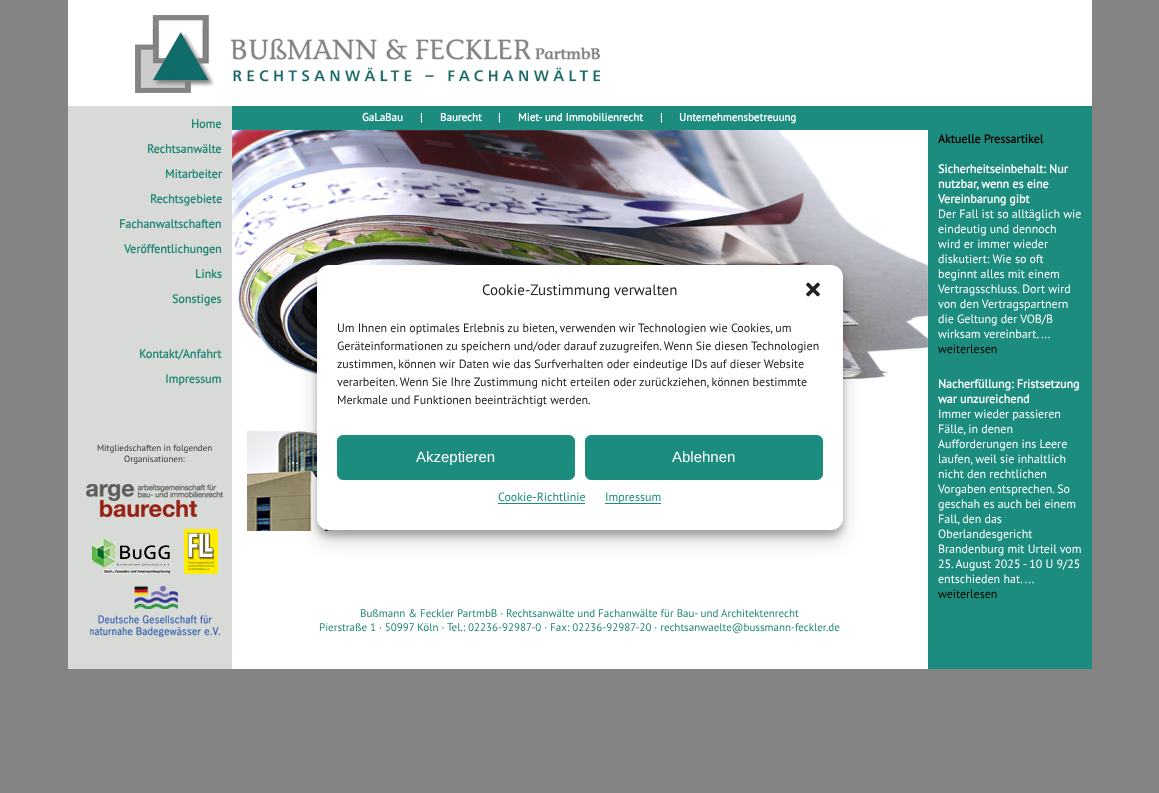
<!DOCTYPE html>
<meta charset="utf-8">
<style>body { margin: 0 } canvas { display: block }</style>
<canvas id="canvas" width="1159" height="793"></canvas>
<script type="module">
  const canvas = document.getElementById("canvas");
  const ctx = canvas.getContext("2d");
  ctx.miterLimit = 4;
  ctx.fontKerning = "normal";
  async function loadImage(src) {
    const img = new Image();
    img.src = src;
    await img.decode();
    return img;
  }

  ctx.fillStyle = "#848484";
  ctx.fillRect(0, 0, 1159, 793);
  ctx.fillStyle = "#d8dad7";
  ctx.fillRect(68, 106, 164, 563);
  ctx.fillStyle = "#ffffff";
  ctx.fillRect(68, 0, 1024, 106);
  ctx.drawImage(await loadImage("img1.png"), 135, 15, 465, 78);
  ctx.fillStyle = "#1c8c7e";
  ctx.fillRect(928, 106, 164, 563);
  ctx.font = "bold 12px PT Sans";
  ctx.fillStyle = "#228877";
  ctx.fillText("Home", 191, 128);
  ctx.fillText("Rechtsanwälte", 147, 153);
  ctx.fillText("Mitarbeiter", 165, 178);
  ctx.fillText("Rechtsgebiete", 150, 203);
  ctx.fillText("Fachanwaltschaften", 119, 228);
  ctx.fillText("Veröffentlichungen", 124, 253);
  ctx.fillText("Links", 195, 278);
  ctx.fillText("Sonstiges", 172, 303);
  ctx.fillText("Kontakt/Anfahrt", 139, 358);
  ctx.fillText("Impressum", 165, 383);
  ctx.font = "9px PT Sans";
  ctx.fillStyle = "#333333";
  ctx.fillText("Mitgliedschaften in folgenden", 97, 451);
  ctx.fillText("Organisationen:", 124, 462);
  ctx.drawImage(await loadImage("img2.png"), 86, 484, 137, 33);
  ctx.drawImage(await loadImage("img3.png"), 91, 537, 80, 37);
  ctx.drawImage(await loadImage("img4.png"), 184, 529, 34, 45);
  ctx.drawImage(await loadImage("img5.png"), 90, 586, 130, 51);
  ctx.fillStyle = "#ffffff";
  ctx.fillRect(232, 393, 696, 276);
  ctx.fillStyle = "#1c8c7e";
  ctx.fillRect(232, 106, 696, 24);
  ctx.font = "bold 11px PT Sans";
  ctx.fillStyle = "#ffffff";
  ctx.fillText("GaLaBau", 362, 121);
  ctx.fillText("|", 420, 121);
  ctx.fillText("Baurecht", 440, 121);
  ctx.fillText("|", 498, 121);
  ctx.fillText("Miet- und Immobilienrecht", 518, 121);
  ctx.fillText("|", 660, 121);
  ctx.fillText("Unternehmensbetreuung", 679, 121);
  ctx.drawImage(await loadImage("img6.png"), 232, 130, 696, 263);
  ctx.drawImage(await loadImage("img7.png"), 247, 431, 100, 100);
  ctx.font = "11px PT Sans";
  ctx.fillStyle = "#228877";
  ctx.fillText("Bußmann & Feckler PartmbB · Rechtsanwälte und Fachanwälte für Bau- und Architektenrecht", 360, 617);
  ctx.fillText("Pierstraße 1 · 50997 Köln · Tel.: 02236-92987-0 · Fax: 02236-92987-20 · rechtsanwaelte@bussmann-feckler.de", 319, 631);
  ctx.font = "bold 12px PT Sans";
  ctx.fillStyle = "#000000";
  ctx.fillText("Aktuelle Pressartikel", 938, 143);
  ctx.fillStyle = "#ffffff";
  ctx.fillText("Sicherheitseinbehalt: Nur", 938, 173);
  ctx.fillText("nutzbar, wenn es eine", 938, 188);
  ctx.fillText("Vereinbarung gibt", 938, 203);
  ctx.font = "12px PT Sans";
  ctx.fillText("Der Fall ist so alltäglich wie", 938, 218);
  ctx.fillText("eindeutig und dennoch", 938, 233);
  ctx.fillText("wird er immer wieder", 938, 248);
  ctx.fillText("diskutiert: Wie so oft", 938, 263);
  ctx.fillText("beginnt alles mit einem", 938, 278);
  ctx.fillText("Vertragsschluss. Dort wird", 938, 293);
  ctx.fillText("von den Vertragspartnern", 938, 308);
  ctx.fillText("die Geltung der VOB/B", 938, 323);
  ctx.fillText("wirksam vereinbart. ...", 938, 338);
  ctx.fillStyle = "#000000";
  ctx.fillText("weiterlesen", 938, 353);
  ctx.font = "bold 12px PT Sans";
  ctx.fillStyle = "#ffffff";
  ctx.fillText("Nacherfüllung: Fristsetzung", 938, 388);
  ctx.fillText("war unzureichend", 938, 403);
  ctx.font = "12px PT Sans";
  ctx.fillText("Immer wieder passieren", 938, 418);
  ctx.fillText("Fälle, in denen", 938, 433);
  ctx.fillText("Aufforderungen ins Leere", 938, 448);
  ctx.fillText("laufen, weil sie inhaltlich", 938, 463);
  ctx.fillText("nicht den rechtlichen", 938, 478);
  ctx.fillText("Vorgaben entsprechen. So", 938, 493);
  ctx.fillText("geschah es auch bei einem", 938, 508);
  ctx.fillText("Fall, den das", 938, 523);
  ctx.fillText("Oberlandesgericht", 938, 538);
  ctx.fillText("Brandenburg mit Urteil vom", 938, 553);
  ctx.fillText("25. August 2025 - 10 U 9/25", 938, 568);
  ctx.fillText("entschieden hat. ...", 938, 583);
  ctx.fillStyle = "#000000";
  ctx.fillText("weiterlesen", 938, 598);
  ctx.fillStyle = "rgba(0, 0, 0, 0.23)";
  ctx.filter = "blur(3px)";
  ctx.beginPath();
  ctx.roundRect(317, 271, 526, 265, 12);
  ctx.fill();
  ctx.filter = "none";
  ctx.fillStyle = "rgba(0, 0, 0, 0.19)";
  ctx.filter = "blur(10px)";
  ctx.beginPath();
  ctx.roundRect(317, 275, 526, 265, 12);
  ctx.fill();
  ctx.filter = "none";
  ctx.fillStyle = "#ffffff";
  ctx.beginPath();
  ctx.roundRect(317, 265, 526, 265, 12);
  ctx.fill();
  ctx.font = "15px PT Sans";
  ctx.fillStyle = "#222222";
  ctx.fillText("Cookie-Zustimmung verwalten", 482, 295);
  ctx.drawImage(await loadImage("img8.png"), 806, 282, 14, 15);
  ctx.font = "12px PT Sans";
  ctx.fillText("Um Ihnen ein optimales Erlebnis zu bieten, verwenden wir Technologien wie Cookies, um", 337, 332);
  ctx.fillText("Geräteinformationen zu speichern und/oder darauf zuzugreifen. Wenn Sie diesen Technologien", 337, 350);
  ctx.fillText("zustimmen, können wir Daten wie das Surfverhalten oder eindeutige IDs auf dieser Website", 337, 368);
  ctx.fillText("verarbeiten. Wenn Sie Ihre Zustimmung nicht erteilen oder zurückziehen, können bestimmte", 337, 386);
  ctx.fillText("Merkmale und Funktionen beeinträchtigt werden.", 337, 404);
  ctx.fillStyle = "#1c8c7e";
  ctx.beginPath();
  ctx.roundRect(337.5, 435.5, 237, 44, 5.5);
  ctx.fill();
  ctx.strokeStyle = "#1c8c7e";
  ctx.stroke();
  ctx.font = "15px Liberation Sans";
  ctx.fillStyle = "#ffffff";
  ctx.fillText("Akzeptieren", 416, 462);
  ctx.fillStyle = "#1c8c7e";
  ctx.beginPath();
  ctx.roundRect(585.5, 435.5, 237, 44, 5.5);
  ctx.fill();
  ctx.stroke();
  ctx.fillStyle = "#ffffff";
  ctx.fillText("Ablehnen", 672, 462);
  ctx.font = "12px PT Sans";
  ctx.fillStyle = "#1c8c7e";
  ctx.fillText("Cookie-Richtlinie", 498, 501);
  ctx.fillRect(498, 503, 87, 1);
  ctx.fillRect(605, 503, 56, 1);
  ctx.fillText("Impressum", 605, 501);
</script>
